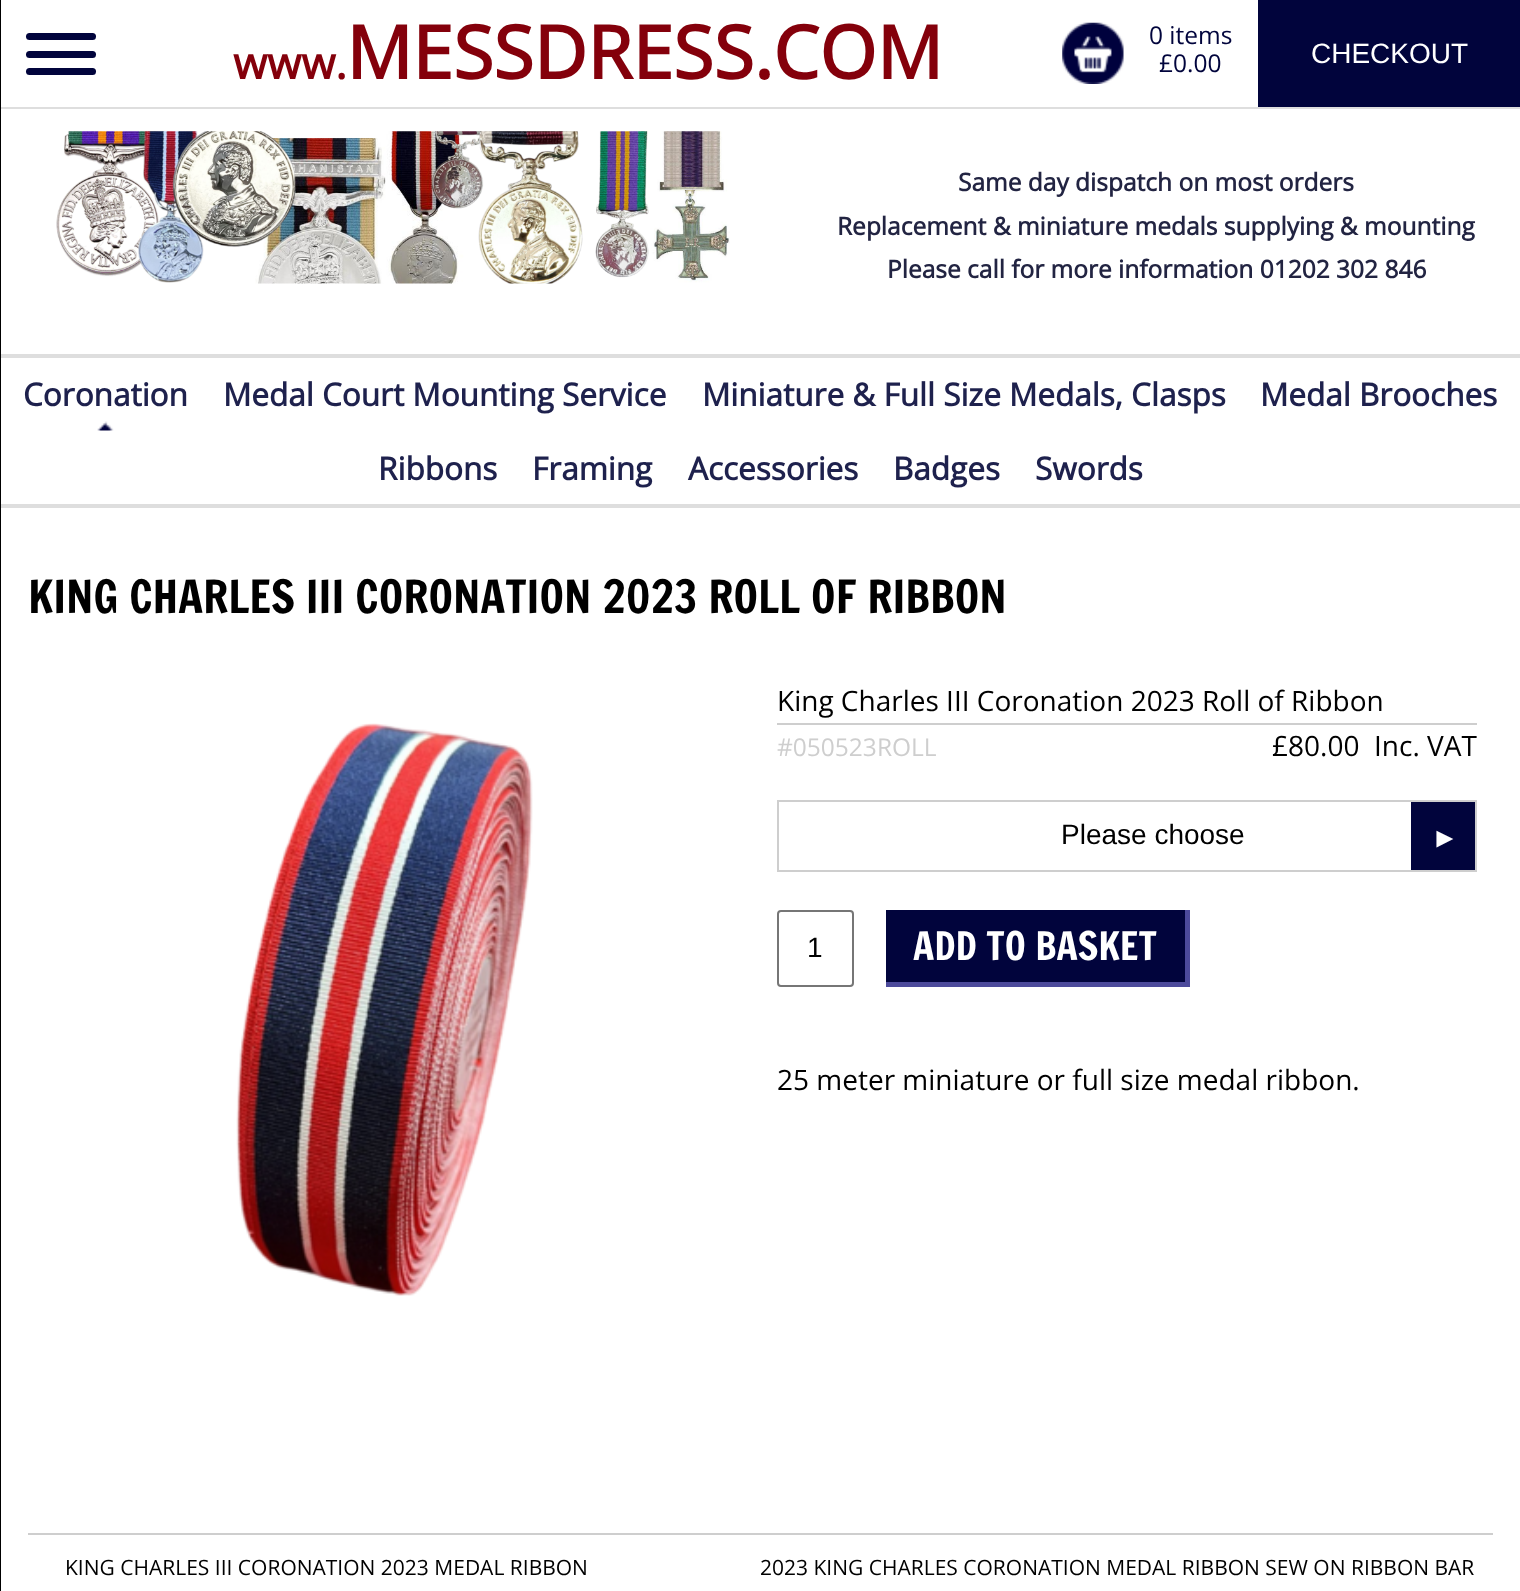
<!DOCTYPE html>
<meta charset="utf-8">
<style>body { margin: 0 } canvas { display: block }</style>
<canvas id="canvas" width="1520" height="1591"></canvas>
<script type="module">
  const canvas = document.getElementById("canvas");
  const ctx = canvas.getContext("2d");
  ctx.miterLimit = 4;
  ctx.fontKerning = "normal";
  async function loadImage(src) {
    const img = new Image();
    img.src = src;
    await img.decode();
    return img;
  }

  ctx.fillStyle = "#ffffff";
  ctx.fillRect(0, 0, 1520, 1591);
  ctx.fillStyle = "#dedede";
  ctx.fillRect(0, 107, 1520, 2);
  ctx.fillRect(0, 354, 1520, 4);
  ctx.fillRect(0, 504, 1520, 4);
  ctx.fillStyle = "#000000";
  ctx.fillRect(0, 0, 1, 1591);
  ctx.fillStyle = "#01043c";
  ctx.beginPath();
  ctx.roundRect(26, 51, 70, 7, 3.5);
  ctx.fill();
  ctx.beginPath();
  ctx.roundRect(26, 33, 70, 7, 3.5);
  ctx.fill();
  ctx.beginPath();
  ctx.roundRect(26, 68, 70, 7, 3.5);
  ctx.fill();
  ctx.font = "bold 44px Open Sans";
  ctx.fillStyle = "#84000b";
  ctx.fillText("www.", 233, 79);
  ctx.font = "bold 73.5px Open Sans";
  ctx.fillText("MESSDRESS.COM", 346, 79);
  ctx.drawImage(await loadImage("img1.png"), 1062, 22, 62, 62);
  ctx.font = "24.5px Open Sans";
  ctx.fillStyle = "#01043c";
  ctx.fillText("0 items", 1149, 44);
  ctx.fillText("£0.00", 1159, 72);
  ctx.fillRect(1258, 0, 262, 107);
  ctx.font = "28px Liberation Sans";
  ctx.fillStyle = "#ffffff";
  ctx.fillText("CHECKOUT", 1311, 63);
  ctx.drawImage(await loadImage("img2.png"), 56, 131, 674, 153);
  ctx.font = "bold 24.5px Open Sans";
  ctx.fillStyle = "#222442";
  ctx.fillText("Same day dispatch on most orders", 958, 191);
  ctx.fillText("Replacement & miniature medals supplying & mounting", 837, 235);
  ctx.fillText("Please call for more information 01202 302 846", 887, 278);
  ctx.font = "bold 31.5px Open Sans";
  ctx.fillStyle = "#1e214d";
  ctx.fillText("Coronation", 23, 406);
  ctx.drawImage(await loadImage("img3.png"), 97, 421, 17, 10);
  ctx.fillText("Medal Court Mounting Service", 223, 406);
  ctx.fillText("Miniature & Full Size Medals, Clasps", 702, 406);
  ctx.fillText("Medal Brooches", 1260, 406);
  ctx.fillText("Ribbons", 378, 480);
  ctx.fillText("Framing", 532, 480);
  ctx.fillText("Accessories", 688, 480);
  ctx.fillText("Badges", 893, 480);
  ctx.fillText("Swords", 1035, 480);
  ctx.font = "44.8px Francois One";
  ctx.fillStyle = "#000000";
  ctx.fillText("KING CHARLES III CORONATION 2023 ROLL OF RIBBON", 28, 613);
  ctx.drawImage(await loadImage("img4.png"), 236, 723, 297, 573);
  ctx.fillStyle = "#cecece";
  ctx.fillRect(777, 723, 700, 2);
  ctx.font = "28px Open Sans";
  ctx.fillStyle = "#000000";
  ctx.fillText("King Charles III Coronation 2023 Roll of Ribbon", 777, 711);
  ctx.font = "24.5px Open Sans";
  ctx.fillStyle = "#cecece";
  ctx.fillText("#050523ROLL", 777, 756);
  ctx.font = "28px Open Sans";
  ctx.fillStyle = "#000000";
  ctx.fillText("£80.00", 1272, 756);
  ctx.fillText("Inc. VAT", 1374, 756);
  ctx.strokeStyle = "#cecece";
  ctx.lineWidth = 2;
  ctx.strokeRect(778, 801, 698, 70);
  ctx.font = "28px Liberation Sans";
  ctx.fillText("Please choose", 1061, 844);
  ctx.fillStyle = "#01043c";
  ctx.fillRect(1411, 802, 64, 68);
  ctx.fillStyle = "#ffffff";
  ctx.fillText("►", 1431, 847);
  ctx.beginPath();
  ctx.roundRect(778, 911, 75, 75, 3);
  ctx.strokeStyle = "#767676";
  ctx.stroke();
  ctx.fillStyle = "#000000";
  ctx.fillText("1", 807, 957);
  ctx.fillStyle = "#01043c";
  ctx.fillRect(886, 910, 299, 72);
  ctx.fillStyle = "#4c4a9b";
  ctx.fillRect(1185, 910, 5, 77);
  ctx.fillRect(886, 982, 304, 5);
  ctx.font = "38.5px Francois One";
  ctx.fillStyle = "#ffffff";
  ctx.fillText("ADD TO BASKET", 913, 960);
  ctx.font = "28px Open Sans";
  ctx.fillStyle = "#000000";
  ctx.fillText("25 meter miniature or full size medal ribbon.", 777, 1090);
  ctx.fillStyle = "#cecece";
  ctx.fillRect(28, 1533, 1465, 2);
  ctx.font = "21px Open Sans";
  ctx.fillStyle = "#000000";
  ctx.fillText("KING CHARLES III CORONATION 2023 MEDAL RIBBON", 65, 1575);
  ctx.fillText("2023 KING CHARLES CORONATION MEDAL RIBBON SEW ON RIBBON BAR", 760, 1575);
</script>
